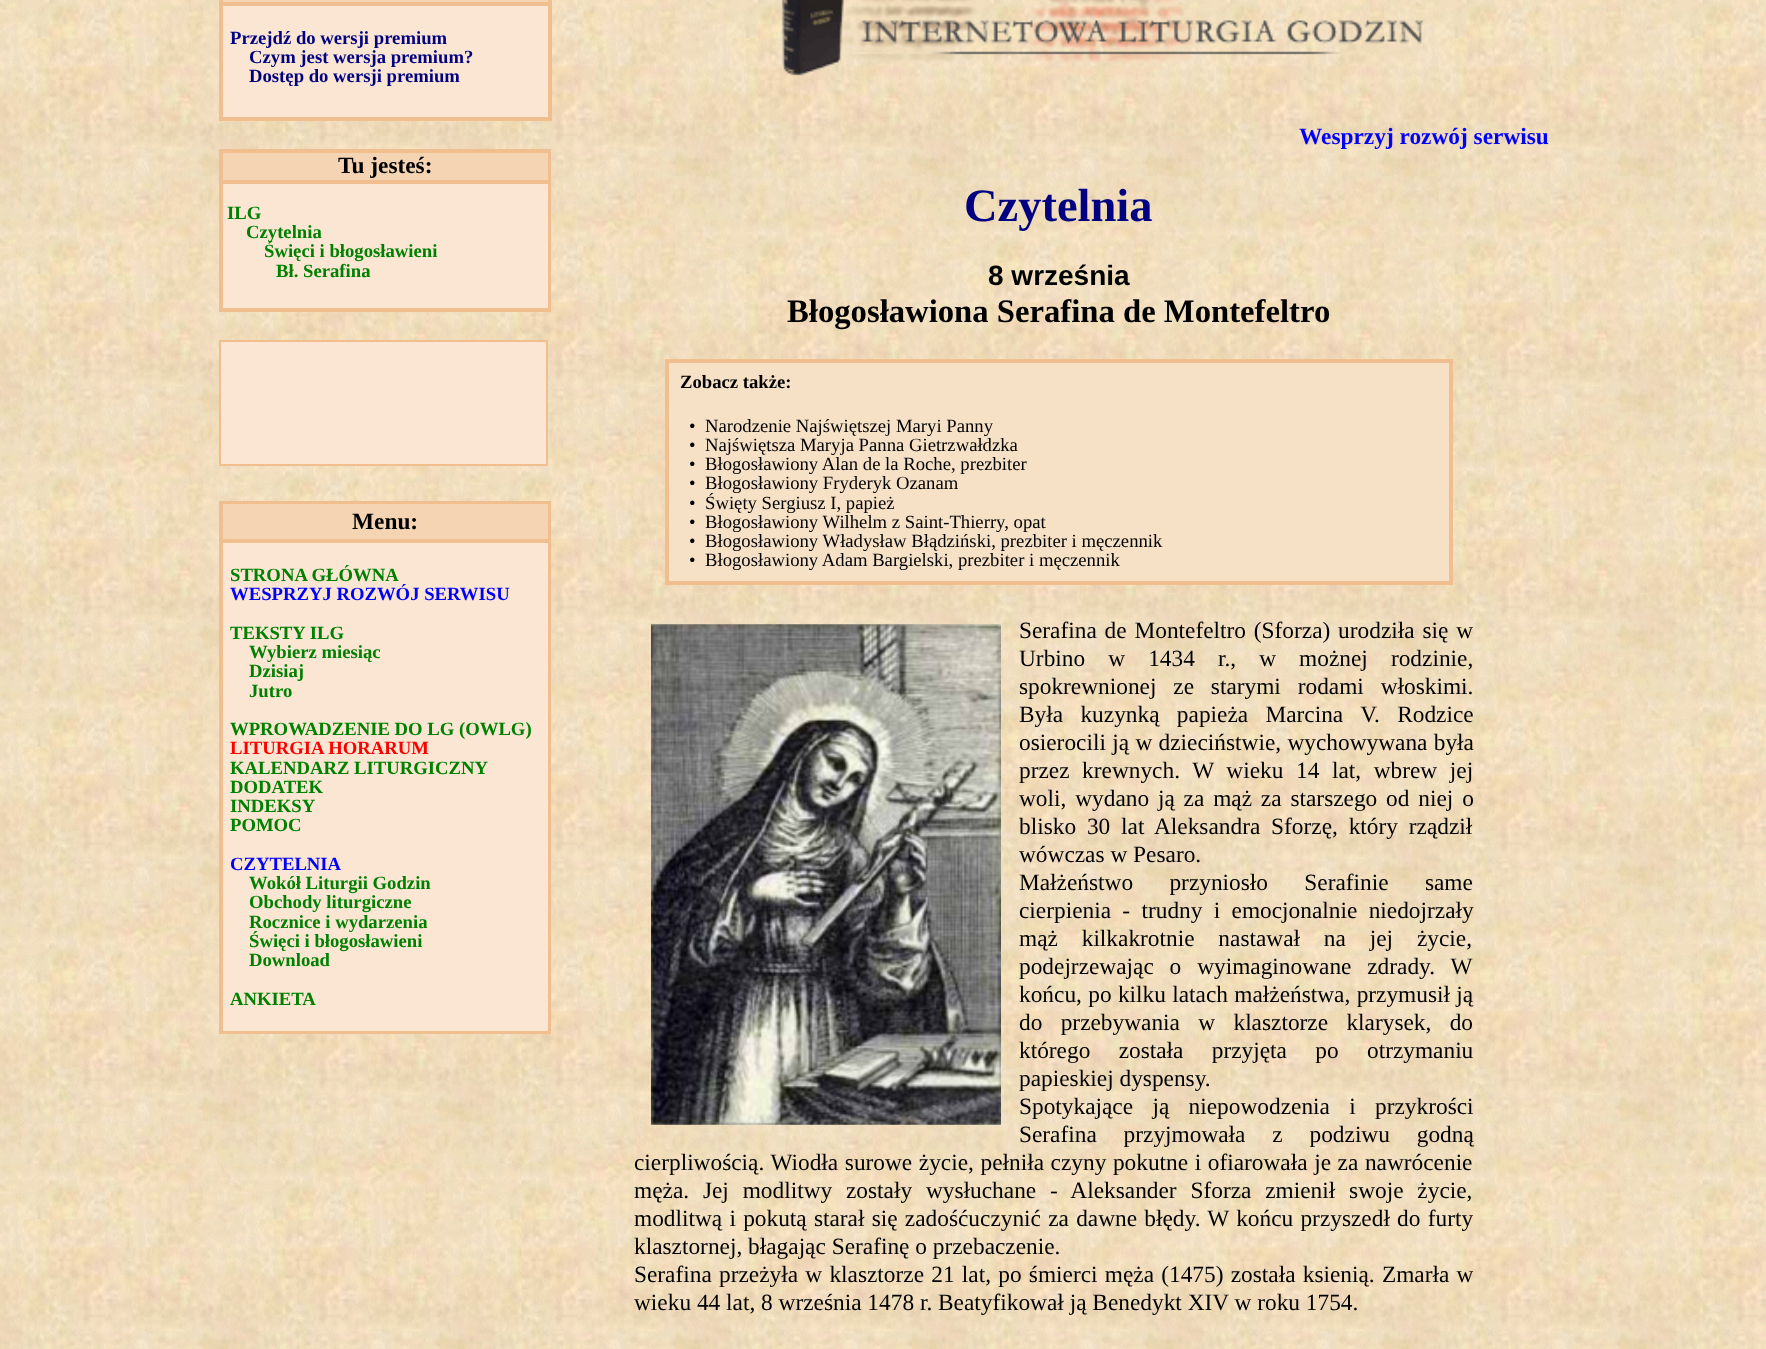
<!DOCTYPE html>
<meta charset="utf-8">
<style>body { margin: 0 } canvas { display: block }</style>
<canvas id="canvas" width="1766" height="1349"></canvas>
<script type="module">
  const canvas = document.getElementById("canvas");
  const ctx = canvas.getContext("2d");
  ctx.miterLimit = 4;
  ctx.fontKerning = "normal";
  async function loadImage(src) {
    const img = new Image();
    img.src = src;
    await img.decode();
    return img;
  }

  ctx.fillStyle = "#ffffff";
  ctx.fillRect(0, 0, 1766, 1349);
  ctx.drawImage(await loadImage("img1.png"), 0, 0, 1766, 1349);
  ctx.fillStyle = "#f5d4b3";
  ctx.fillRect(221, 0, 329, 2);
  ctx.fillStyle = "#fae6d2";
  ctx.fillRect(223, 6, 325, 111);
  ctx.fillStyle = "#f1bf8f";
  ctx.fillRect(219, 2, 332, 4);
  ctx.fillRect(548, 0, 4, 121);
  ctx.fillRect(219, 117, 332, 4);
  ctx.fillRect(219, 0, 4, 121);
  ctx.font = "bold 18.7px Liberation Serif";
  ctx.fillStyle = "#000080";
  ctx.fillText("Przejdź do wersji premium", 230, 44);
  ctx.fillText("Czym jest wersja premium?", 249, 63);
  ctx.fillText("Dostęp do wersji premium", 249, 82);
  ctx.strokeStyle = "#f1bf8f";
  ctx.lineWidth = 2;
  ctx.strokeRect(220, 150, 330, 161);
  ctx.fillStyle = "#f5d4b3";
  ctx.beginPath();
  ctx.rect(222, 152, 327, 29);
  ctx.fill();
  ctx.stroke();
  ctx.font = "bold 23.35px Liberation Serif";
  ctx.fillStyle = "#000000";
  ctx.fillText("Tu jesteś:", 338, 173);
  ctx.fillStyle = "#fae6d2";
  ctx.beginPath();
  ctx.rect(222, 183, 327, 126);
  ctx.fill();
  ctx.stroke();
  ctx.font = "bold 18.7px Liberation Serif";
  ctx.fillStyle = "#008000";
  ctx.fillText("ILG", 227, 219);
  ctx.fillText("Czytelnia", 246, 238);
  ctx.fillText("Święci i błogosławieni", 264, 257);
  ctx.fillText("Bł. Serafina", 276, 277);
  ctx.fillStyle = "#fae6d2";
  ctx.beginPath();
  ctx.rect(220, 341, 327, 124);
  ctx.fill();
  ctx.stroke();
  ctx.strokeRect(220, 502, 330, 531);
  ctx.fillStyle = "#f5d4b3";
  ctx.beginPath();
  ctx.rect(222, 503, 327, 37);
  ctx.fill();
  ctx.stroke();
  ctx.font = "bold 23.35px Liberation Serif";
  ctx.fillStyle = "#000000";
  ctx.fillText("Menu:", 352, 529);
  ctx.fillStyle = "#fae6d2";
  ctx.beginPath();
  ctx.rect(222, 542, 327, 490);
  ctx.fill();
  ctx.stroke();
  ctx.font = "bold 18.7px Liberation Serif";
  ctx.fillStyle = "#008000";
  ctx.fillText("STRONA GŁÓWNA", 230, 581);
  ctx.fillStyle = "#0000ff";
  ctx.fillText("WESPRZYJ ROZWÓJ SERWISU", 230, 600);
  ctx.fillStyle = "#008000";
  ctx.fillText("TEKSTY ILG", 230, 639);
  ctx.fillText("Wybierz miesiąc", 249, 658);
  ctx.fillText("Dzisiaj", 249, 677);
  ctx.fillText("Jutro", 249, 697);
  ctx.fillText("WPROWADZENIE DO LG (OWLG)", 230, 735);
  ctx.fillStyle = "#ff0000";
  ctx.fillText("LITURGIA HORARUM", 230, 754);
  ctx.fillStyle = "#008000";
  ctx.fillText("KALENDARZ LITURGICZNY", 230, 774);
  ctx.fillText("DODATEK", 230, 793);
  ctx.fillText("INDEKSY", 230, 812);
  ctx.fillText("POMOC", 230, 831);
  ctx.fillStyle = "#0000ff";
  ctx.fillText("CZYTELNIA", 230, 870);
  ctx.fillStyle = "#008000";
  ctx.fillText("Wokół Liturgii Godzin", 249, 889);
  ctx.fillText("Obchody liturgiczne", 249, 908);
  ctx.fillText("Rocznice i wydarzenia", 249, 928);
  ctx.fillText("Święci i błogosławieni", 249, 947);
  ctx.fillText("Download", 249, 966);
  ctx.fillText("ANKIETA", 230, 1005);
  ctx.drawImage(await loadImage("img2.png"), 781, 0, 643, 76);
  ctx.font = "bold 23.35px Liberation Serif";
  ctx.fillStyle = "#0000ff";
  ctx.fillText("Wesprzyj rozwój serwisu", 1299, 144);
  ctx.font = "bold 46.5px Liberation Serif";
  ctx.fillStyle = "#000080";
  ctx.fillText("Czytelnia", 964, 221);
  ctx.font = "bold 28px Liberation Sans";
  ctx.fillStyle = "#000000";
  ctx.fillText("8 września", 988, 285);
  ctx.font = "bold 32.7px Liberation Serif";
  ctx.fillText("Błogosławiona Serafina de Montefeltro", 787, 322);
  ctx.fillStyle = "#f6e0c6";
  ctx.fillRect(669, 363, 780, 218);
  ctx.strokeRect(666, 360, 786, 224);
  ctx.strokeRect(668, 362, 782, 220);
  ctx.font = "bold 18.7px Liberation Serif";
  ctx.fillStyle = "#000000";
  ctx.fillText("Zobacz także:", 680, 388);
  ctx.font = "18.7px Liberation Serif";
  ctx.fillText("•", 689, 432);
  ctx.fillText("Narodzenie Najświętszej Maryi Panny", 705, 432);
  ctx.fillText("•", 689, 451);
  ctx.fillText("Najświętsza Maryja Panna Gietrzwałdzka", 705, 451);
  ctx.fillText("•", 689, 470);
  ctx.fillText("Błogosławiony Alan de la Roche, prezbiter", 705, 470);
  ctx.fillText("•", 689, 489);
  ctx.fillText("Błogosławiony Fryderyk Ozanam", 705, 489);
  ctx.fillText("•", 689, 509);
  ctx.fillText("Święty Sergiusz I, papież", 705, 509);
  ctx.fillText("•", 689, 528);
  ctx.fillText("Błogosławiony Wilhelm z Saint-Thierry, opat", 705, 528);
  ctx.fillText("•", 689, 547);
  ctx.fillText("Błogosławiony Władysław Błądziński, prezbiter i męczennik", 705, 547);
  ctx.fillText("•", 689, 566);
  ctx.fillText("Błogosławiony Adam Bargielski, prezbiter i męczennik", 705, 566);
  ctx.wordSpacing = "2px";
  ctx.font = "23.35px Liberation Serif";
  ctx.fillText("Serafina de Montefeltro (Sforza) urodziła się w", 1019, 638);
  ctx.wordSpacing = "17.25px";
  ctx.fillText("Urbino w 1434 r., w możnej rodzinie,", 1019, 666);
  ctx.wordSpacing = "11px";
  ctx.fillText("spokrewnionej ze starymi rodami włoskimi.", 1019, 694);
  ctx.wordSpacing = "11.5px";
  ctx.fillText("Była kuzynką papieża Marcina V. Rodzice", 1019, 722);
  ctx.wordSpacing = "0.5px";
  ctx.fillText("osierocili ją w dzieciństwie, wychowywana była", 1019, 750);
  ctx.wordSpacing = "6.75px";
  ctx.fillText("przez krewnych. W wieku 14 lat, wbrew jej", 1019, 778);
  ctx.wordSpacing = "3px";
  ctx.fillText("woli, wydano ją za mąż za starszego od niej o", 1019, 806);
  ctx.wordSpacing = "5px";
  ctx.fillText("blisko 30 lat Aleksandra Sforzę, który rządził", 1019, 834);
  ctx.wordSpacing = "0px";
  ctx.fillText("wówczas w Pesaro.", 1019, 862);
  ctx.wordSpacing = "30.5px";
  ctx.fillText("Małżeństwo przyniosło Serafinie same", 1019, 890);
  ctx.wordSpacing = "5.5px";
  ctx.fillText("cierpienia - trudny i emocjonalnie niedojrzały", 1019, 918);
  ctx.wordSpacing = "18px";
  ctx.fillText("mąż kilkakrotnie nastawał na jej życie,", 1019, 946);
  ctx.wordSpacing = "10px";
  ctx.fillText("podejrzewając o wyimaginowane zdrady. W", 1019, 974);
  ctx.wordSpacing = "0.5px";
  ctx.fillText("końcu, po kilku latach małżeństwa, przymusił ją", 1019, 1002);
  ctx.wordSpacing = "12.5px";
  ctx.fillText("do przebywania w klasztorze klarysek, do", 1019, 1030);
  ctx.wordSpacing = "22.5px";
  ctx.fillText("którego została przyjęta po otrzymaniu", 1019, 1058);
  ctx.wordSpacing = "0px";
  ctx.fillText("papieskiej dyspensy.", 1019, 1086);
  ctx.wordSpacing = "13.5px";
  ctx.fillText("Spotykające ją niepowodzenia i przykrości", 1019, 1114);
  ctx.wordSpacing = "21px";
  ctx.fillText("Serafina przyjmowała z podziwu godną", 1019, 1142);
  ctx.wordSpacing = "0.75px";
  ctx.fillText("cierpliwością. Wiodła surowe życie, pełniła czyny pokutne i ofiarowała je za nawrócenie", 634, 1170);
  ctx.wordSpacing = "8px";
  ctx.fillText("męża. Jej modlitwy zostały wysłuchane - Aleksander Sforza zmienił swoje życie,", 634, 1198);
  ctx.wordSpacing = "1.4px";
  ctx.fillText("modlitwą i pokutą starał się zadośćuczynić za dawne błędy. W końcu przyszedł do furty", 634, 1226);
  ctx.wordSpacing = "0px";
  ctx.fillText("klasztornej, błagając Serafinę o przebaczenie.", 634, 1254);
  ctx.wordSpacing = "1.4px";
  ctx.fillText("Serafina przeżyła w klasztorze 21 lat, po śmierci męża (1475) została ksienią. Zmarła w", 634, 1282);
  ctx.wordSpacing = "0px";
  ctx.fillText("wieku 44 lat, 8 września 1478 r. Beatyfikował ją Benedykt XIV w roku 1754.", 634, 1310);
  ctx.drawImage(await loadImage("img3.png"), 651, 624, 350, 501);
</script>
